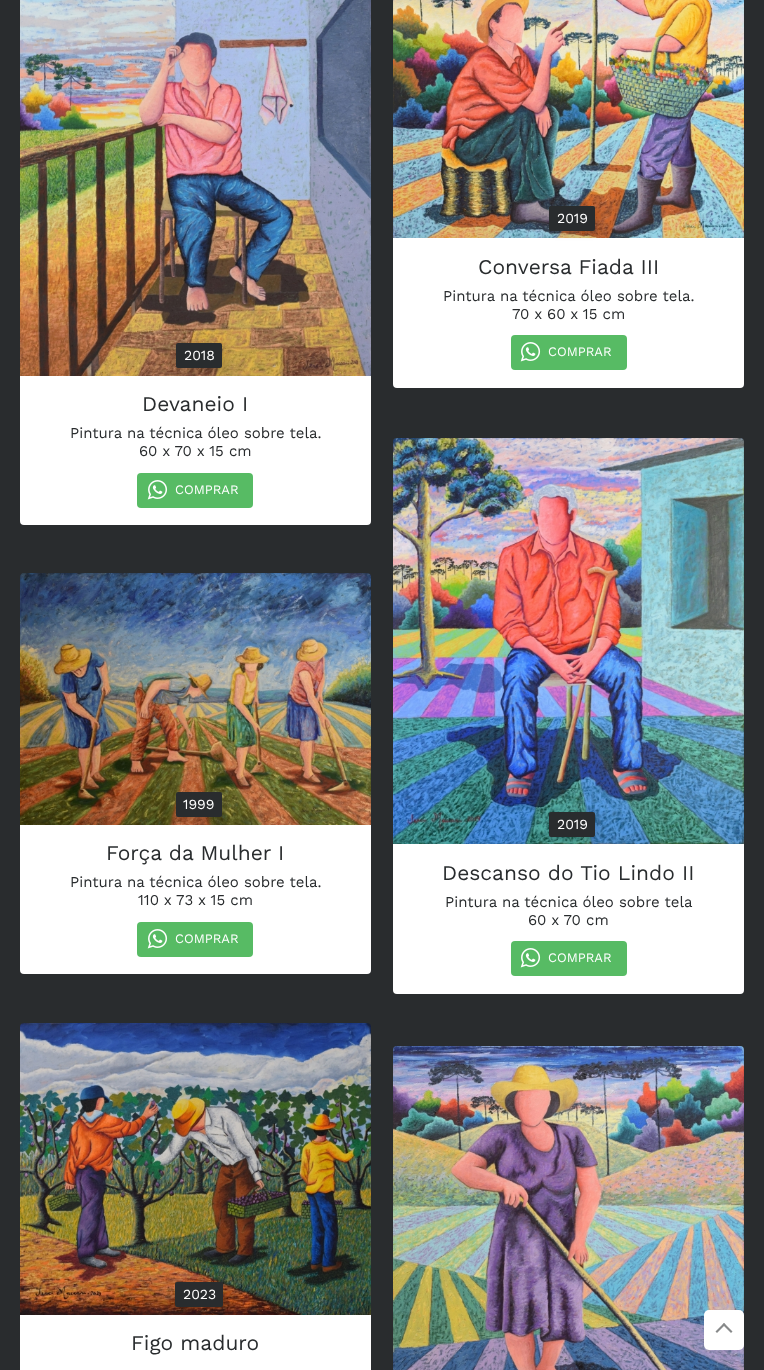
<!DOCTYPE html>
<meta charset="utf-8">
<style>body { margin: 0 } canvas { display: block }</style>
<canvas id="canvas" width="764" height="1370"></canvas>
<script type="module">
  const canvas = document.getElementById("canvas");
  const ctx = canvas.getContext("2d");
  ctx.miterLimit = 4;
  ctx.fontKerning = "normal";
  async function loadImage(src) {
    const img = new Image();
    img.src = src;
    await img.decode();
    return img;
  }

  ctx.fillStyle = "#292c2e";
  ctx.fillRect(0, 0, 764, 1370);
  ctx.drawImage(await loadImage("img1.png"), 393, 0, 351, 238);
  ctx.fillStyle = "#ffffff";
  ctx.beginPath();
  ctx.roundRect(393, 238, 351, 150, [0, 0, 4, 4]);
  ctx.fill();
  ctx.fillStyle = "rgba(0, 0, 0, 0.2)";
  ctx.filter = "blur(3.5px)";
  ctx.beginPath();
  ctx.roundRect(551, 208, 46, 25, 2);
  ctx.fill();
  ctx.filter = "none";
  ctx.fillStyle = "#292c2e";
  ctx.beginPath();
  ctx.roundRect(549, 206, 46, 25, 2);
  ctx.fill();
  ctx.font = "14px Work Sans";
  ctx.fillStyle = "#ffffff";
  ctx.fillText("2019", 557, 223);
  ctx.font = "21px Work Sans";
  ctx.fillStyle = "#292c2e";
  ctx.fillText("Conversa Fiada III", 478, 274);
  ctx.font = "15px Work Sans";
  ctx.fillText("Pintura na técnica óleo sobre tela.", 443, 301);
  ctx.fillText("70 x 60 x 15 cm", 512, 319);
  ctx.fillStyle = "#57bb64";
  ctx.beginPath();
  ctx.roundRect(511, 335, 116, 35, 4);
  ctx.fill();
  ctx.drawImage(await loadImage("img2.png"), 520, 342, 21, 20);
  ctx.font = "13px Work Sans";
  ctx.fillStyle = "#ffffff";
  ctx.fillText("COMPRAR", 548, 356);
  ctx.drawImage(await loadImage("img3.png"), 20, 0, 351, 376);
  ctx.beginPath();
  ctx.roundRect(20, 376, 351, 149, [0, 0, 4, 4]);
  ctx.fill();
  ctx.fillStyle = "rgba(0, 0, 0, 0.2)";
  ctx.filter = "blur(3.5px)";
  ctx.beginPath();
  ctx.roundRect(178, 345, 46, 25, 2);
  ctx.fill();
  ctx.filter = "none";
  ctx.fillStyle = "#292c2e";
  ctx.beginPath();
  ctx.roundRect(176, 343, 46, 25, 2);
  ctx.fill();
  ctx.font = "14px Work Sans";
  ctx.fillStyle = "#ffffff";
  ctx.fillText("2018", 184, 360);
  ctx.font = "21px Work Sans";
  ctx.fillStyle = "#292c2e";
  ctx.fillText("Devaneio I", 142, 411);
  ctx.font = "15px Work Sans";
  ctx.fillText("Pintura na técnica óleo sobre tela.", 70, 438);
  ctx.fillText("60 x 70 x 15 cm", 139, 456);
  ctx.fillStyle = "#57bb64";
  ctx.beginPath();
  ctx.roundRect(137, 473, 116, 35, 4);
  ctx.fill();
  ctx.drawImage(await loadImage("img2.png"), 147, 480, 21, 20);
  ctx.font = "13px Work Sans";
  ctx.fillStyle = "#ffffff";
  ctx.fillText("COMPRAR", 175, 494);
  ctx.drawImage(await loadImage("img4.png"), 20, 573, 351, 252);
  ctx.beginPath();
  ctx.roundRect(20, 825, 351, 149, [0, 0, 4, 4]);
  ctx.fill();
  ctx.fillStyle = "rgba(0, 0, 0, 0.2)";
  ctx.filter = "blur(3.5px)";
  ctx.beginPath();
  ctx.roundRect(178, 794, 46, 25, 2);
  ctx.fill();
  ctx.filter = "none";
  ctx.fillStyle = "#292c2e";
  ctx.beginPath();
  ctx.roundRect(176, 792, 46, 25, 2);
  ctx.fill();
  ctx.font = "14px Work Sans";
  ctx.fillStyle = "#ffffff";
  ctx.fillText("1999", 183, 809);
  ctx.font = "21px Work Sans";
  ctx.fillStyle = "#292c2e";
  ctx.fillText("Força da Mulher I", 106, 860);
  ctx.font = "15px Work Sans";
  ctx.fillText("Pintura na técnica óleo sobre tela.", 70, 887);
  ctx.fillText("110 x 73 x 15 cm", 138, 905);
  ctx.fillStyle = "#57bb64";
  ctx.beginPath();
  ctx.roundRect(137, 922, 116, 35, 4);
  ctx.fill();
  ctx.drawImage(await loadImage("img2.png"), 147, 929, 21, 20);
  ctx.font = "13px Work Sans";
  ctx.fillStyle = "#ffffff";
  ctx.fillText("COMPRAR", 175, 943);
  ctx.drawImage(await loadImage("img5.png"), 393, 438, 351, 406);
  ctx.beginPath();
  ctx.roundRect(393, 844, 351, 150, [0, 0, 4, 4]);
  ctx.fill();
  ctx.fillStyle = "rgba(0, 0, 0, 0.2)";
  ctx.filter = "blur(3.5px)";
  ctx.beginPath();
  ctx.roundRect(551, 814, 46, 25, 2);
  ctx.fill();
  ctx.filter = "none";
  ctx.fillStyle = "#292c2e";
  ctx.beginPath();
  ctx.roundRect(549, 812, 46, 25, 2);
  ctx.fill();
  ctx.font = "14px Work Sans";
  ctx.fillStyle = "#ffffff";
  ctx.fillText("2019", 557, 829);
  ctx.font = "21px Work Sans";
  ctx.fillStyle = "#292c2e";
  ctx.fillText("Descanso do Tio Lindo II", 442, 880);
  ctx.font = "15px Work Sans";
  ctx.fillText("Pintura na técnica óleo sobre tela", 445, 907);
  ctx.fillText("60 x 70 cm", 528, 925);
  ctx.fillStyle = "#57bb64";
  ctx.beginPath();
  ctx.roundRect(511, 941, 116, 35, 4);
  ctx.fill();
  ctx.drawImage(await loadImage("img2.png"), 520, 948, 21, 20);
  ctx.font = "13px Work Sans";
  ctx.fillStyle = "#ffffff";
  ctx.fillText("COMPRAR", 548, 962);
  ctx.drawImage(await loadImage("img6.png"), 20, 1023, 351, 292);
  ctx.fillRect(20, 1315, 351, 55);
  ctx.fillStyle = "rgba(0, 0, 0, 0.2)";
  ctx.filter = "blur(3.5px)";
  ctx.beginPath();
  ctx.roundRect(177, 1284, 48, 25, 2);
  ctx.fill();
  ctx.filter = "none";
  ctx.fillStyle = "#292c2e";
  ctx.beginPath();
  ctx.roundRect(175, 1282, 48, 25, 2);
  ctx.fill();
  ctx.font = "14px Work Sans";
  ctx.fillStyle = "#ffffff";
  ctx.fillText("2023", 183, 1299);
  ctx.font = "21px Work Sans";
  ctx.fillStyle = "#292c2e";
  ctx.fillText("Figo maduro", 131, 1350);
  ctx.drawImage(await loadImage("img7.png"), 393, 1046, 351, 324);
  ctx.fillStyle = "#ffffff";
  ctx.beginPath();
  ctx.roundRect(704, 1310, 40, 40, 5);
  ctx.fill();
  ctx.fillStyle = "#87898a";
  ctx.beginPath();
  ctx.moveTo(715.5, 1331.5);
  ctx.lineTo(724, 1323);
  ctx.lineTo(725.5, 1324.5);
  ctx.lineTo(717, 1333);
  ctx.closePath();
  ctx.fill();
  ctx.beginPath();
  ctx.moveTo(722.5, 1324.5);
  ctx.lineTo(724, 1323);
  ctx.lineTo(732.5, 1331.5);
  ctx.lineTo(731, 1333);
  ctx.closePath();
  ctx.fill();
</script>
